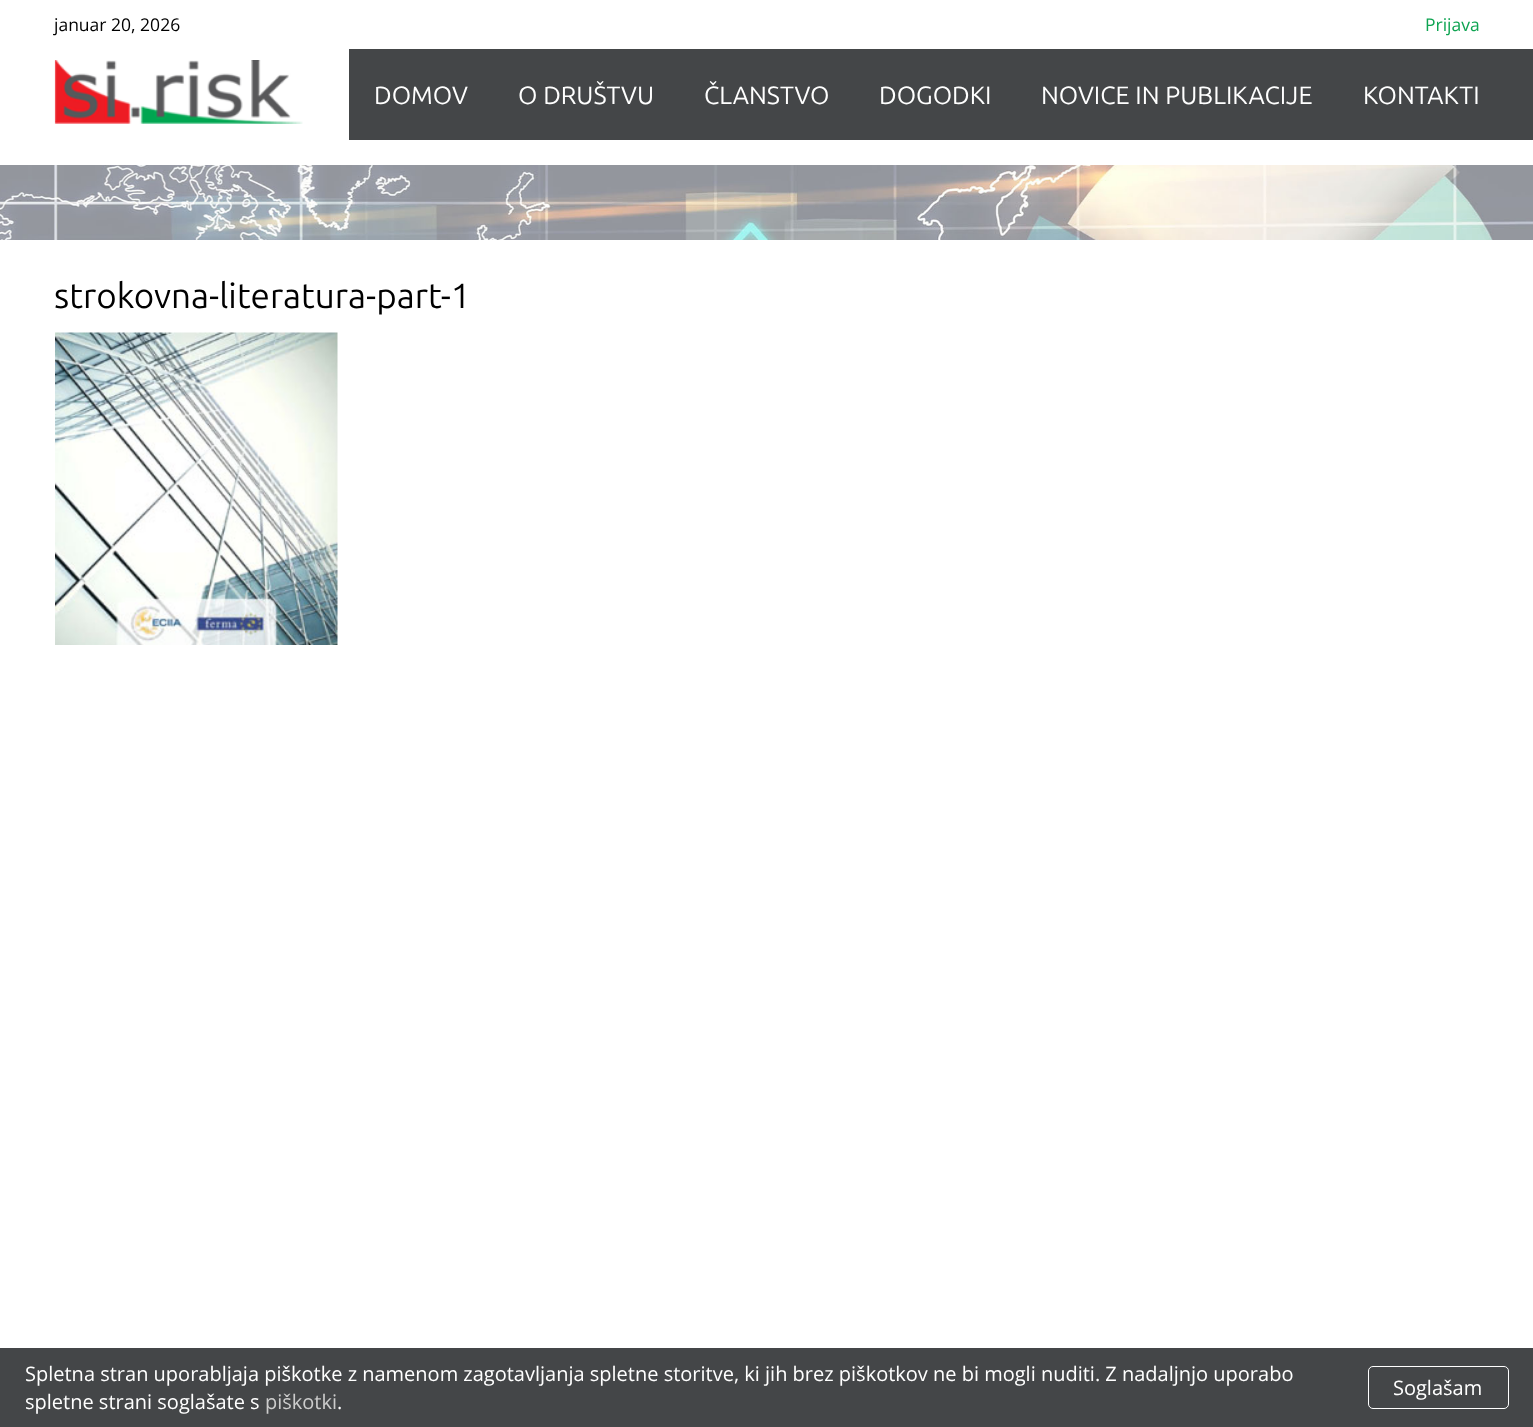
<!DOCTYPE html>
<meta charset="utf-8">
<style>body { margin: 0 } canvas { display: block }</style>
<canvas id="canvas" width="1533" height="1427"></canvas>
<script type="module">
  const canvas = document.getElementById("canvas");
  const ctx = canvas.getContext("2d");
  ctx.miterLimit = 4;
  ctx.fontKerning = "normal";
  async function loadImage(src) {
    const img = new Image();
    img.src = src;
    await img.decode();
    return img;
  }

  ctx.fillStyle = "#ffffff";
  ctx.fillRect(0, 0, 1533, 1427);
  ctx.font = "17.5px Open Sans";
  ctx.fillStyle = "#000000";
  ctx.fillText("januar 20, 2026", 54, 31);
  ctx.fillStyle = "#0fa452";
  ctx.fillText("Prijava", 1425, 31);
  ctx.drawImage(await loadImage("img1.png"), 54, 60, 249, 64);
  ctx.fillStyle = "#444648";
  ctx.fillRect(349, 49, 1184, 91);
  ctx.font = "25px Ubuntu";
  ctx.fillStyle = "#ffffff";
  ctx.fillText("DOMOV", 374, 104);
  ctx.fillText("O DRUŠTVU", 518, 104);
  ctx.fillText("ČLANSTVO", 704, 104);
  ctx.fillText("DOGODKI", 879, 104);
  ctx.fillText("NOVICE IN PUBLIKACIJE", 1041, 104);
  ctx.fillText("KONTAKTI", 1363, 104);
  ctx.drawImage(await loadImage("img2.png"), 0, 165, 1533, 75);
  ctx.font = "35px Ubuntu";
  ctx.fillStyle = "#000000";
  ctx.fillText("strokovna-literatura-part-1", 54, 308);
  ctx.drawImage(await loadImage("img3.png"), 55, 332, 283, 313);
  ctx.fillStyle = "#444648";
  ctx.fillRect(0, 1348, 1533, 79);
  ctx.font = "20px Open Sans";
  ctx.fillStyle = "#ffffff";
  ctx.fillText("Spletna stran uporabljaja piškotke z namenom zagotavljanja spletne storitve, ki jih brez piškotkov ne bi mogli nuditi. Z nadaljnjo uporabo", 25, 1381);
  ctx.fillText("spletne strani soglašate s", 25, 1409);
  ctx.fillStyle = "#cccccc";
  ctx.fillText("piškotki", 265, 1409);
  ctx.fillStyle = "#ffffff";
  ctx.fillText(".", 337, 1409);
  ctx.beginPath();
  ctx.roundRect(1368.5, 1366.5, 140, 42, 4.5);
  ctx.strokeStyle = "#ffffff";
  ctx.stroke();
  ctx.fillText("Soglašam", 1393, 1395);
</script>
